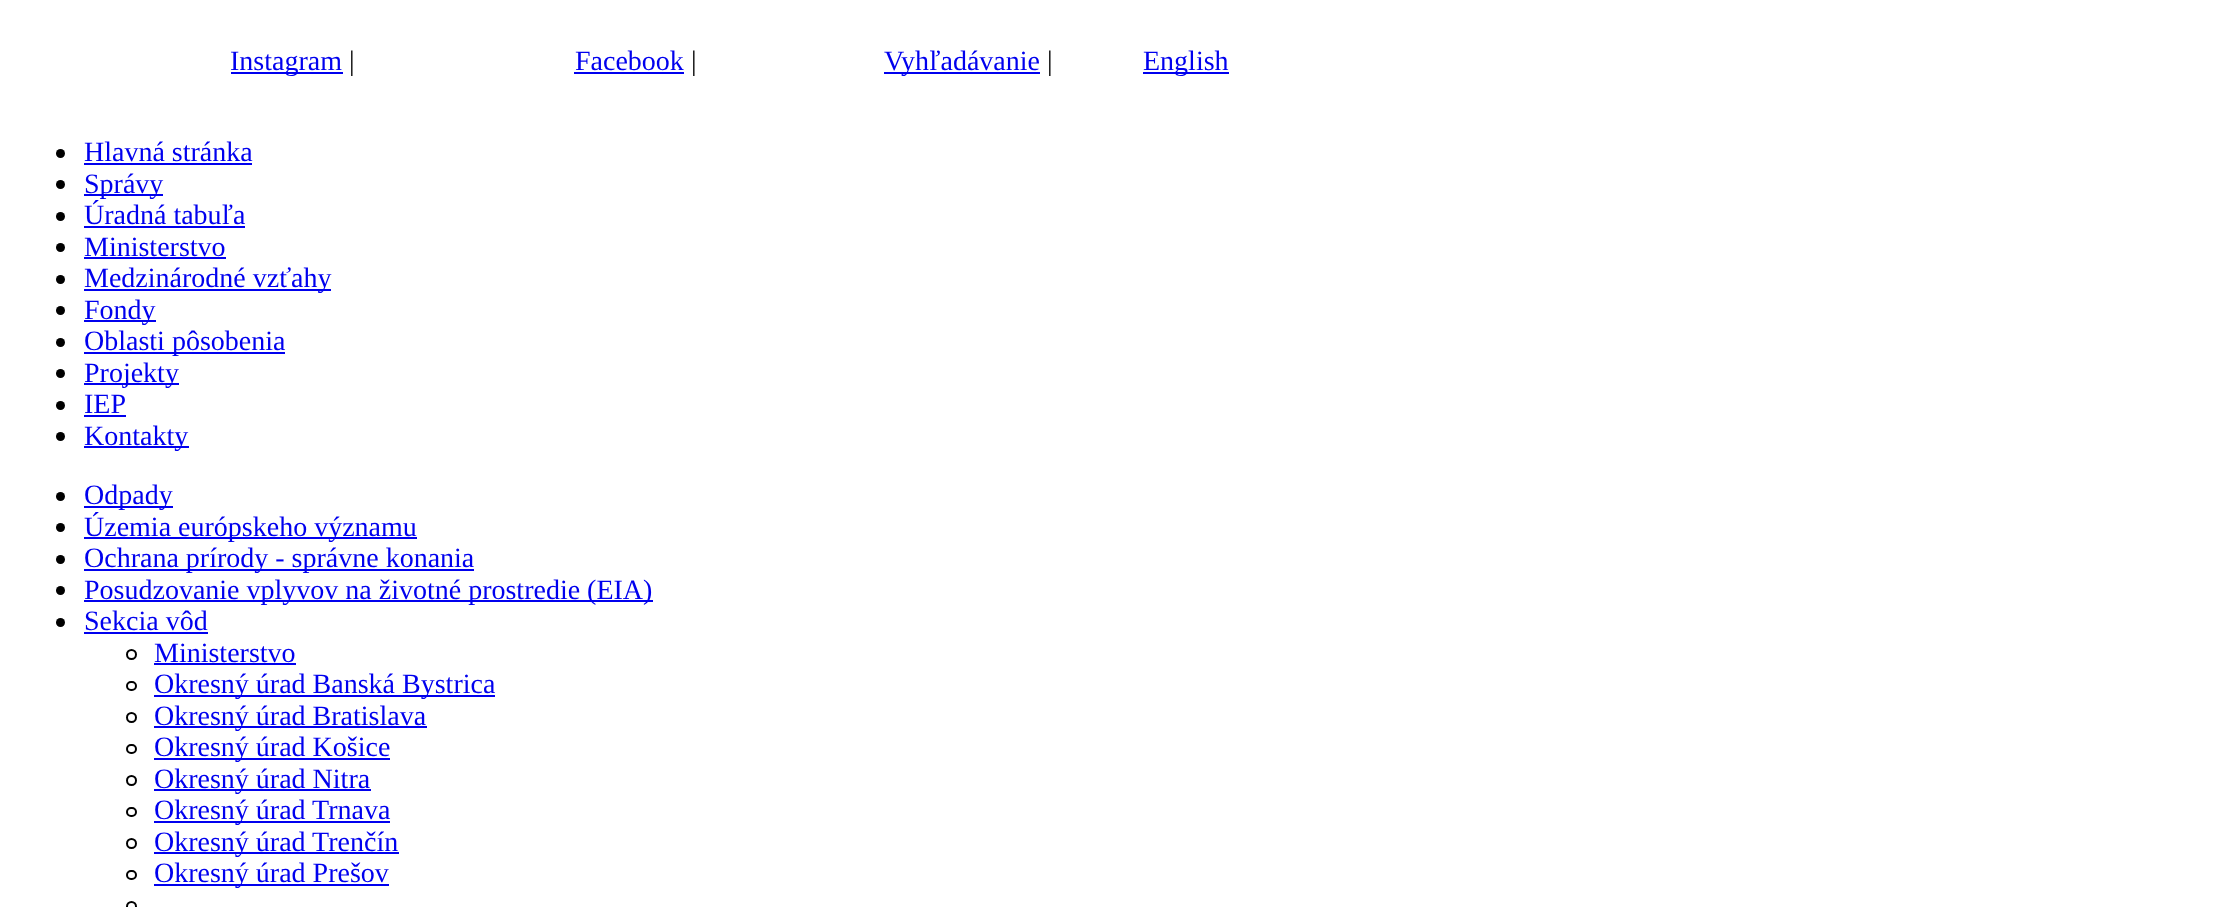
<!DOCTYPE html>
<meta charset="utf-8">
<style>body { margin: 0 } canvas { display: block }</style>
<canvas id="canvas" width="2225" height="907"></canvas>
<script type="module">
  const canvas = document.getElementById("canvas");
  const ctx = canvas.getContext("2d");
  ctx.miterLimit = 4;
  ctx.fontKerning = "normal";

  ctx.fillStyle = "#ffffff";
  ctx.fillRect(0, 0, 2225, 907);
  ctx.fillStyle = "#0000ee";
  ctx.fillRect(231, 72, 112, 2);
  ctx.font = "28px Liberation Serif";
  ctx.fillText("Instagram", 230, 70);
  ctx.fillStyle = "#000000";
  ctx.fillText("|", 349, 70);
  ctx.fillStyle = "#0000ee";
  ctx.fillText("Facebook", 575, 70);
  ctx.fillRect(574, 72, 110, 2);
  ctx.fillStyle = "#000000";
  ctx.fillText("|", 691, 70);
  ctx.fillStyle = "#0000ee";
  ctx.fillRect(884, 72, 156, 2);
  ctx.fillText("Vyhľadávanie", 884, 70);
  ctx.fillStyle = "#000000";
  ctx.fillText("|", 1047, 70);
  ctx.fillStyle = "#0000ee";
  ctx.fillRect(1143, 72, 86, 2);
  ctx.fillText("English", 1143, 70);
  ctx.fillStyle = "#000000";
  ctx.beginPath();
  ctx.arc(60.5, 153.5, 4.5, 0, Math.PI * 2);
  ctx.fill();
  ctx.fillStyle = "#0000ee";
  ctx.fillText("Hlavná stránka", 84, 161);
  ctx.fillRect(84, 163, 168, 2);
  ctx.fillStyle = "#000000";
  ctx.beginPath();
  ctx.arc(60.5, 184.5, 4.5, 0, Math.PI * 2);
  ctx.fill();
  ctx.fillStyle = "#0000ee";
  ctx.fillRect(84, 194, 79, 2);
  ctx.fillText("Správy", 84, 193);
  ctx.fillStyle = "#000000";
  ctx.beginPath();
  ctx.arc(60.5, 216.5, 4.5, 0, Math.PI * 2);
  ctx.fill();
  ctx.fillStyle = "#0000ee";
  ctx.fillText("Úradná tabuľa", 84, 224);
  ctx.fillRect(84, 226, 161, 2);
  ctx.fillStyle = "#000000";
  ctx.beginPath();
  ctx.arc(60.5, 247.5, 4.5, 0, Math.PI * 2);
  ctx.fill();
  ctx.fillStyle = "#0000ee";
  ctx.fillText("Ministerstvo", 84, 256);
  ctx.fillRect(84, 257, 142, 2);
  ctx.fillStyle = "#000000";
  ctx.beginPath();
  ctx.arc(60.5, 279.5, 4.5, 0, Math.PI * 2);
  ctx.fill();
  ctx.fillStyle = "#0000ee";
  ctx.fillRect(84, 289, 247, 2);
  ctx.fillText("Medzinárodné vzťahy", 84, 287);
  ctx.fillStyle = "#000000";
  ctx.beginPath();
  ctx.arc(60.5, 310.5, 4.5, 0, Math.PI * 2);
  ctx.fill();
  ctx.fillStyle = "#0000ee";
  ctx.fillRect(84, 320, 72, 2);
  ctx.fillText("Fondy", 84, 319);
  ctx.fillStyle = "#000000";
  ctx.beginPath();
  ctx.arc(60.5, 342.5, 4.5, 0, Math.PI * 2);
  ctx.fill();
  ctx.fillStyle = "#0000ee";
  ctx.fillRect(84, 352, 201, 2);
  ctx.fillText("Oblasti pôsobenia", 84, 350);
  ctx.fillStyle = "#000000";
  ctx.beginPath();
  ctx.arc(60.5, 373.5, 4.5, 0, Math.PI * 2);
  ctx.fill();
  ctx.fillStyle = "#0000ee";
  ctx.fillRect(84, 383, 95, 2);
  ctx.fillText("Projekty", 84, 382);
  ctx.fillStyle = "#000000";
  ctx.beginPath();
  ctx.arc(60.5, 405.5, 4.5, 0, Math.PI * 2);
  ctx.fill();
  ctx.fillStyle = "#0000ee";
  ctx.fillText("IEP", 84, 413);
  ctx.fillRect(84, 415, 42, 2);
  ctx.fillStyle = "#000000";
  ctx.beginPath();
  ctx.arc(60.5, 436.5, 4.5, 0, Math.PI * 2);
  ctx.fill();
  ctx.fillStyle = "#0000ee";
  ctx.fillRect(84, 446, 105, 2);
  ctx.fillText("Kontakty", 84, 445);
  ctx.fillStyle = "#000000";
  ctx.beginPath();
  ctx.arc(60.5, 496.5, 4.5, 0, Math.PI * 2);
  ctx.fill();
  ctx.fillStyle = "#0000ee";
  ctx.fillRect(84, 506, 89, 2);
  ctx.fillText("Odpady", 84, 504);
  ctx.fillStyle = "#000000";
  ctx.beginPath();
  ctx.arc(60.5, 527.5, 4.5, 0, Math.PI * 2);
  ctx.fill();
  ctx.fillStyle = "#0000ee";
  ctx.fillRect(84, 537, 333, 2);
  ctx.fillText("Územia európskeho významu", 84, 536);
  ctx.fillStyle = "#000000";
  ctx.beginPath();
  ctx.arc(60.5, 559.5, 4.5, 0, Math.PI * 2);
  ctx.fill();
  ctx.fillStyle = "#0000ee";
  ctx.fillRect(84, 569, 390, 2);
  ctx.fillText("Ochrana prírody - správne konania", 84, 567);
  ctx.fillStyle = "#000000";
  ctx.beginPath();
  ctx.arc(60.5, 590.5, 4.5, 0, Math.PI * 2);
  ctx.fill();
  ctx.fillStyle = "#0000ee";
  ctx.fillRect(84, 600, 569, 2);
  ctx.fillText("Posudzovanie vplyvov na životné prostredie (EIA)", 84, 599);
  ctx.fillStyle = "#000000";
  ctx.beginPath();
  ctx.arc(60.5, 622.5, 4.5, 0, Math.PI * 2);
  ctx.fill();
  ctx.fillStyle = "#0000ee";
  ctx.fillText("Sekcia vôd", 84, 630);
  ctx.fillRect(84, 632, 124, 2);
  ctx.beginPath();
  ctx.arc(131.5, 654.5, 4.5, 0, Math.PI * 2);
  ctx.strokeStyle = "#000000";
  ctx.lineWidth = 2;
  ctx.stroke();
  ctx.fillText("Ministerstvo", 154, 662);
  ctx.fillRect(154, 663, 142, 2);
  ctx.beginPath();
  ctx.roundRect(127, 682, 9, 8, 4);
  ctx.stroke();
  ctx.fillRect(154, 695, 341, 2);
  ctx.fillText("Okresný úrad Banská Bystrica", 154, 693);
  ctx.beginPath();
  ctx.arc(131.5, 717.5, 4.5, 0, Math.PI * 2);
  ctx.stroke();
  ctx.fillRect(154, 726, 273, 2);
  ctx.fillText("Okresný úrad Bratislava", 154, 725);
  ctx.beginPath();
  ctx.roundRect(127, 745, 9, 8, 4);
  ctx.stroke();
  ctx.fillRect(154, 758, 236, 2);
  ctx.fillText("Okresný úrad Košice", 154, 756);
  ctx.beginPath();
  ctx.arc(131.5, 780.5, 4.5, 0, Math.PI * 2);
  ctx.stroke();
  ctx.fillRect(154, 789, 217, 2);
  ctx.fillText("Okresný úrad Nitra", 154, 788);
  ctx.beginPath();
  ctx.roundRect(127, 808, 9, 8, 4);
  ctx.stroke();
  ctx.fillRect(154, 821, 236, 2);
  ctx.fillText("Okresný úrad Trnava", 154, 819);
  ctx.beginPath();
  ctx.arc(131.5, 843.5, 4.5, 0, Math.PI * 2);
  ctx.stroke();
  ctx.fillRect(154, 852, 245, 2);
  ctx.fillText("Okresný úrad Trenčín", 154, 851);
  ctx.beginPath();
  ctx.roundRect(127, 871, 9, 8, 4);
  ctx.stroke();
  ctx.fillRect(154, 884, 235, 2);
  ctx.fillText("Okresný úrad Prešov", 154, 882);
  ctx.beginPath();
  ctx.arc(131.5, 906.5, 4.5, 0, Math.PI * 2);
  ctx.stroke();
</script>
